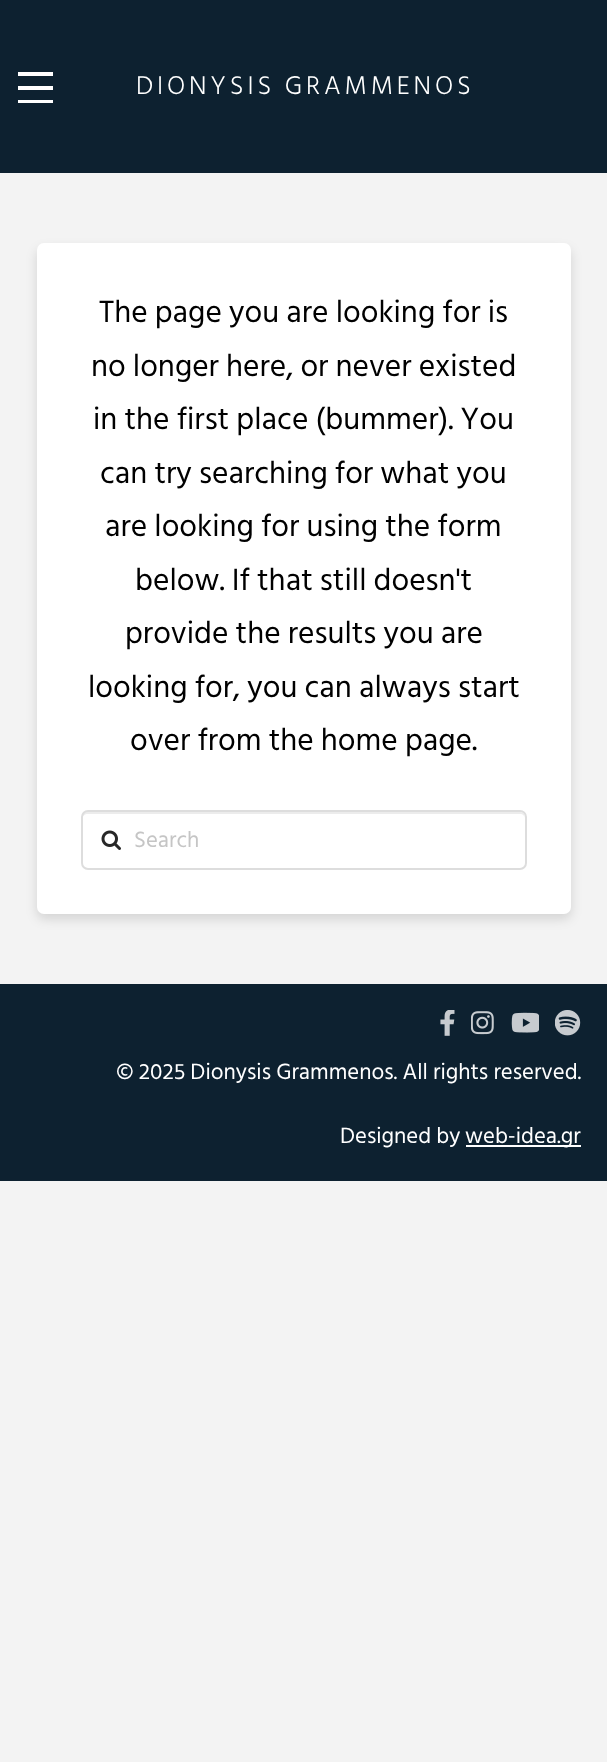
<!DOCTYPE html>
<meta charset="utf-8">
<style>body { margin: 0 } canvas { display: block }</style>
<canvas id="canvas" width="607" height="1762"></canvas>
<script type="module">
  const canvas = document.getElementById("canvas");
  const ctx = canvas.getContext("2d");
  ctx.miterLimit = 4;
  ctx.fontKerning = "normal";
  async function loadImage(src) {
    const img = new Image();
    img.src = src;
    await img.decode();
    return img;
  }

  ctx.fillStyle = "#f3f3f3";
  ctx.fillRect(0, 0, 607, 1762);
  ctx.fillStyle = "#0d2130";
  ctx.fillRect(0, 0, 607, 173);
  ctx.fillStyle = "#ffffff";
  ctx.fillRect(18, 72, 35, 4);
  ctx.fillRect(18, 86, 35, 4);
  ctx.fillRect(18, 100, 35, 3);
  ctx.letterSpacing = "3.9px";
  ctx.font = "300 26.25px Hind Siliguri";
  ctx.fillText("DIONYSIS GRAMMENOS", 136, 94);
  ctx.fillStyle = "rgba(0, 0, 0, 0.13)";
  ctx.filter = "blur(5.5px)";
  ctx.beginPath();
  ctx.roundRect(37, 249, 534, 670, 7);
  ctx.fill();
  ctx.filter = "none";
  ctx.fillStyle = "#ffffff";
  ctx.beginPath();
  ctx.roundRect(37, 243, 534, 671, 7);
  ctx.fill();
  ctx.letterSpacing = "0px";
  ctx.font = "31.5px Hind Siliguri";
  ctx.fillStyle = "#000000";
  ctx.fillText("The page you are looking for is", 99, 322);
  ctx.fillText("no longer here, or never existed", 91, 376);
  ctx.fillText("in the first place (bummer). You", 93, 429);
  ctx.fillText("can try searching for what you", 100, 483);
  ctx.fillText("are looking for using the form", 105, 536);
  ctx.fillText("below. If that still doesn't", 135, 590);
  ctx.fillText("provide the results you are", 125, 643);
  ctx.fillText("looking for, you can always start", 88, 697);
  ctx.fillText("over from the home page.", 130, 750);
  ctx.fillStyle = "#ececec";
  ctx.beginPath();
  ctx.moveTo(88, 814);
  ctx.lineTo(520, 814);
  ctx.bezierCurveTo(523, 814, 525, 816, 525, 819);
  ctx.bezierCurveTo(525, 816, 524, 812, 520, 812);
  ctx.lineTo(87, 812);
  ctx.bezierCurveTo(83, 812, 82, 816, 82, 819);
  ctx.bezierCurveTo(82, 816, 85, 814, 88, 814);
  ctx.closePath();
  ctx.fill();
  ctx.beginPath();
  ctx.roundRect(82, 811, 444, 58, 6);
  ctx.strokeStyle = "#dddddd";
  ctx.lineWidth = 2;
  ctx.stroke();
  ctx.drawImage(await loadImage("img1.png"), 101, 830, 20, 20);
  ctx.font = "22.75px Hind Siliguri";
  ctx.fillStyle = "#c5c5c5";
  ctx.fillText("Search", 134, 847);
  ctx.fillStyle = "#0d2130";
  ctx.fillRect(0, 984, 607, 197);
  ctx.drawImage(await loadImage("img2.png"), 440, 1010, 15, 26);
  ctx.drawImage(await loadImage("img3.png"), 471, 1011, 23, 24);
  ctx.drawImage(await loadImage("img4.png"), 511, 1012, 28, 21);
  ctx.drawImage(await loadImage("img5.png"), 555, 1010, 26, 26);
  ctx.fillStyle = "#ffffff";
  ctx.fillText("© 2025 Dionysis Grammenos. All rights reserved.", 116, 1079);
  ctx.fillText("Designed by", 340, 1143);
  ctx.fillRect(466, 1145, 115, 2);
  ctx.fillText("web-idea.gr", 465, 1143);
</script>
